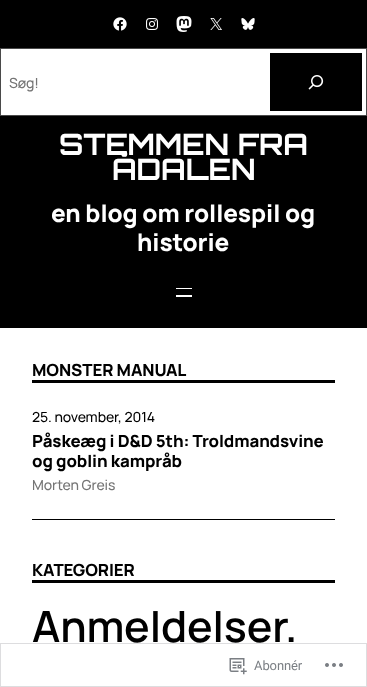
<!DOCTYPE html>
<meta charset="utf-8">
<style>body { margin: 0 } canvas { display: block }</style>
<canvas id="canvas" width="367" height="687"></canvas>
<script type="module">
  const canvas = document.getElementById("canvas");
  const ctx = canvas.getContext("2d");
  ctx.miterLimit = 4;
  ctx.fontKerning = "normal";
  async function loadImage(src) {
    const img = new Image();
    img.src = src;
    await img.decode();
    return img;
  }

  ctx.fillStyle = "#ffffff";
  ctx.fillRect(0, 0, 367, 687);
  ctx.fillStyle = "#000000";
  ctx.fillRect(0, 0, 367, 328);
  ctx.drawImage(await loadImage("img1.png"), 113, 17, 14, 14);
  ctx.drawImage(await loadImage("img2.png"), 146, 18, 12, 12);
  ctx.drawImage(await loadImage("img3.png"), 176, 16, 16, 16);
  ctx.drawImage(await loadImage("img4.png"), 210, 18, 12, 12);
  ctx.drawImage(await loadImage("img5.png"), 241, 18, 14, 12);
  ctx.fillStyle = "#ffffff";
  ctx.beginPath();
  ctx.rect(0.5, 48.5, 366, 67);
  ctx.fill();
  ctx.strokeStyle = "#4a4a4a";
  ctx.stroke();
  ctx.letterSpacing = "-0.1px";
  ctx.font = "500 14px Manrope";
  ctx.fillStyle = "#757575";
  ctx.fillText("Søg!", 9, 88);
  ctx.fillStyle = "#000000";
  ctx.fillRect(270, 53, 92, 58);
  ctx.drawImage(await loadImage("img6.png"), 308, 75, 16, 15);
  ctx.font = "bold 29.5px Orbitron";
  ctx.fillStyle = "#ffffff";
  ctx.fillText("STEMMEN FRA", 59, 155);
  ctx.fillText("ÅDALEN", 112, 180);
  ctx.font = "800 24.25px Manrope";
  ctx.fillText("en blog om rollespil og", 51, 222);
  ctx.fillText("historie", 137, 251);
  ctx.fillRect(176, 288, 16, 1);
  ctx.fillRect(176, 295, 16, 2);
  ctx.fillStyle = "#000000";
  ctx.fillRect(32, 380, 303, 3);
  ctx.font = "800 16.8px Manrope";
  ctx.fillText("MONSTER MANUAL", 32, 376);
  ctx.font = "500 14px Manrope";
  ctx.fillText("25. november, 2014", 32, 422);
  ctx.font = "800 16.8px Manrope";
  ctx.fillText("Påskeæg i D&D 5th: Troldmandsvine", 32, 447);
  ctx.fillText("og goblin kampråb", 32, 467);
  ctx.font = "500 14px Manrope";
  ctx.fillStyle = "#757575";
  ctx.fillText("Morten Greis", 32, 490);
  ctx.fillStyle = "#000000";
  ctx.fillRect(32, 519, 303, 1);
  ctx.fillRect(32, 580, 303, 3);
  ctx.font = "800 16.8px Manrope";
  ctx.fillText("KATEGORIER", 32, 576);
  ctx.font = "600 43px Manrope";
  ctx.fillText("Anmeldelser", 32, 642);
  ctx.fillText(".", 285, 642);
  ctx.strokeStyle = "#dddddf";
  ctx.strokeRect(0.5, 643.5, 366, 43);
  ctx.drawImage(await loadImage("img7.png"), 229, 658, 18, 17);
  ctx.font = "13px Roboto";
  ctx.fillStyle = "#7b7f84";
  ctx.fillText("Abonnér", 254, 670);
  ctx.drawImage(await loadImage("img8.png"), 325, 663, 18, 4);
</script>
